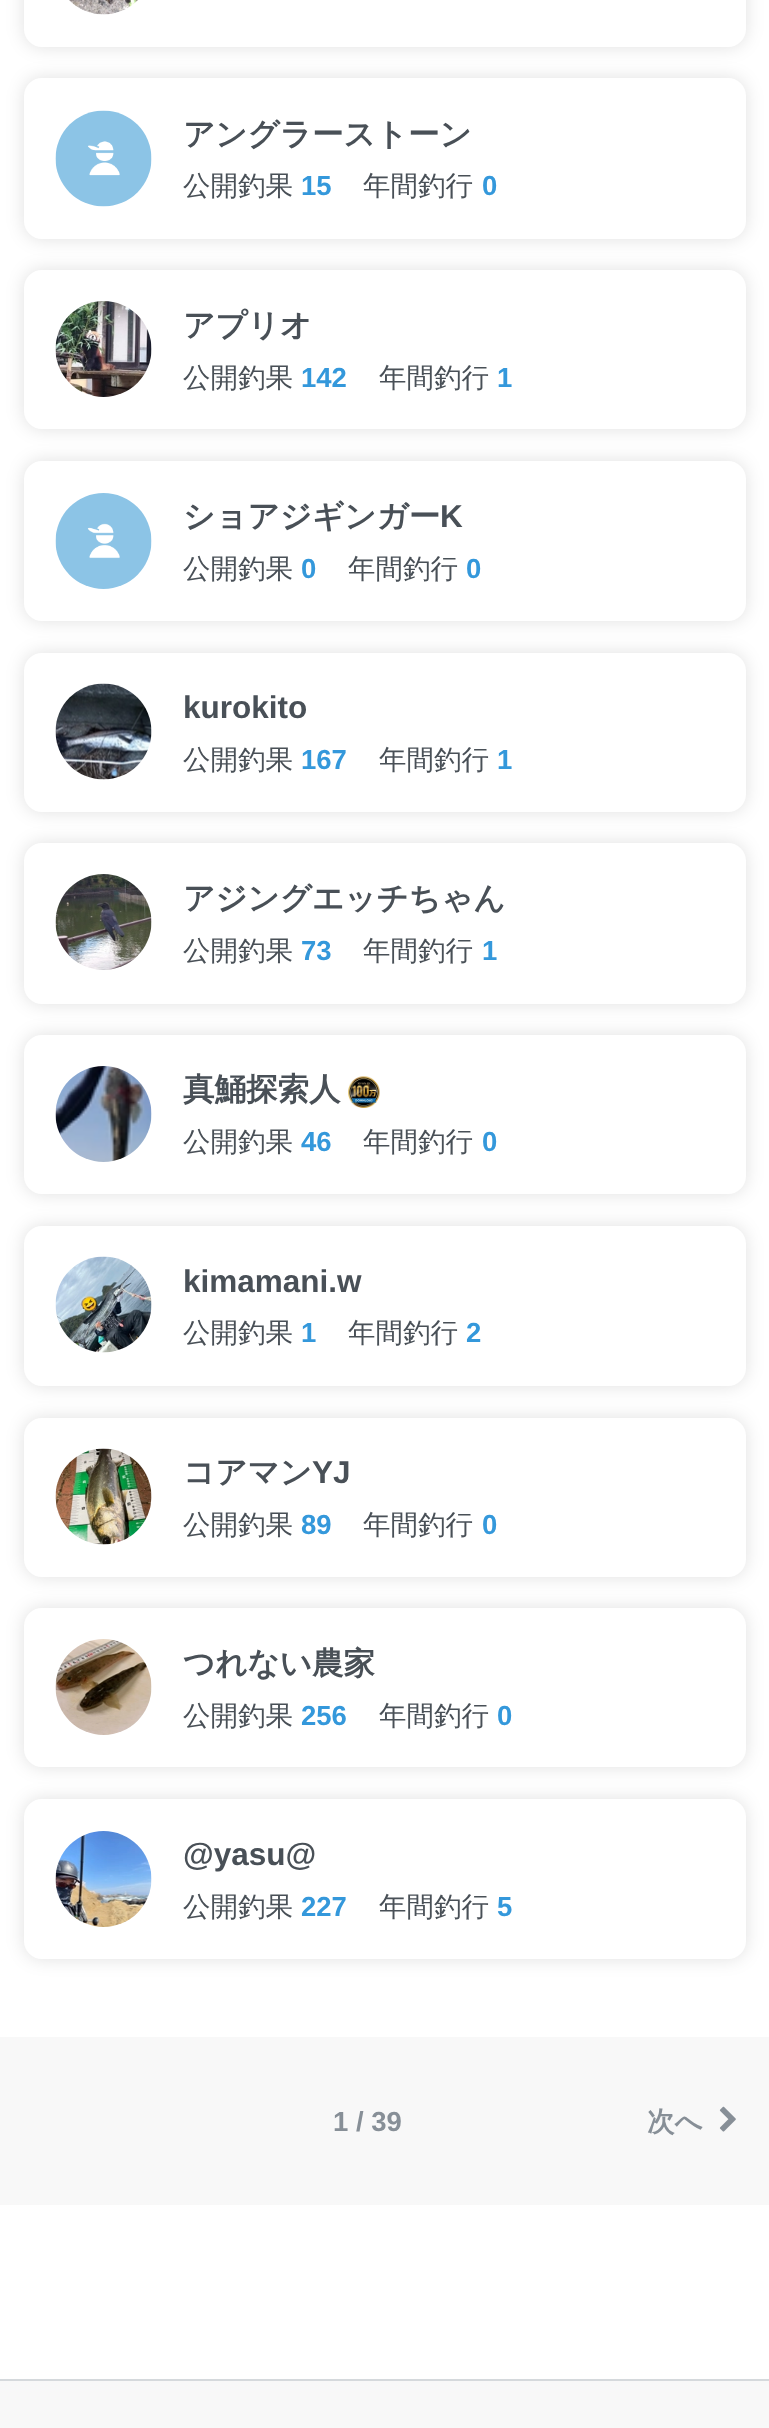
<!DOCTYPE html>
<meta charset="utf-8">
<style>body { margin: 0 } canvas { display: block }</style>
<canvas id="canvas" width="769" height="2428"></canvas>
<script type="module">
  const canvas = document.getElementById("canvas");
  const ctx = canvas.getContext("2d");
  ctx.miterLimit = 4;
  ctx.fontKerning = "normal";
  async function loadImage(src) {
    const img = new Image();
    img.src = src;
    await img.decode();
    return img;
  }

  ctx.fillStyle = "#ffffff";
  ctx.fillRect(0, 0, 769, 2428);
  ctx.fillStyle = "rgba(0, 0, 0, 0.12)";
  ctx.filter = "blur(9px)";
  ctx.beginPath();
  ctx.roundRect(24, -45, 722, 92, 18);
  ctx.fill();
  ctx.filter = "none";
  ctx.fillStyle = "#ffffff";
  ctx.beginPath();
  ctx.roundRect(24, -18, 722, 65, 18);
  ctx.fill();
  ctx.drawImage(await loadImage("img1.png"), 69, 0, 69, 15);
  ctx.fillStyle = "rgba(0, 0, 0, 0.12)";
  ctx.filter = "blur(9px)";
  ctx.beginPath();
  ctx.roundRect(24, 78, 722, 161, 18);
  ctx.fill();
  ctx.filter = "none";
  ctx.fillStyle = "#ffffff";
  ctx.beginPath();
  ctx.roundRect(24, 78, 722, 161, 18);
  ctx.fill();
  ctx.drawImage(await loadImage("img2.png"), 55, 110, 97, 97);
  ctx.font = "bold 31.5px WenQuanYi Zen Hei";
  ctx.fillStyle = "#495057";
  ctx.fillText("アングラーストーン", 183, 145);
  ctx.font = "500 27.5px WenQuanYi Zen Hei";
  ctx.fillText("公開釣果", 183, 195);
  ctx.font = "bold 27.5px Liberation Sans";
  ctx.fillStyle = "#3498db";
  ctx.fillText("15", 301, 195);
  ctx.font = "500 27.5px WenQuanYi Zen Hei";
  ctx.fillStyle = "#495057";
  ctx.fillText("年間釣行", 363, 195);
  ctx.font = "bold 27.5px Liberation Sans";
  ctx.fillStyle = "#3498db";
  ctx.fillText("0", 482, 195);
  ctx.fillStyle = "rgba(0, 0, 0, 0.12)";
  ctx.filter = "blur(9px)";
  ctx.beginPath();
  ctx.roundRect(24, 270, 722, 159, 18);
  ctx.fill();
  ctx.filter = "none";
  ctx.fillStyle = "#ffffff";
  ctx.beginPath();
  ctx.roundRect(24, 270, 722, 159, 18);
  ctx.fill();
  ctx.drawImage(await loadImage("img3.png"), 55, 301, 97, 96);
  ctx.font = "bold 31.5px WenQuanYi Zen Hei";
  ctx.fillStyle = "#495057";
  ctx.fillText("アプリオ", 183, 336);
  ctx.font = "500 27.5px WenQuanYi Zen Hei";
  ctx.fillText("公開釣果", 183, 387);
  ctx.font = "bold 27.5px Liberation Sans";
  ctx.fillStyle = "#3498db";
  ctx.fillText("142", 301, 387);
  ctx.font = "500 27.5px WenQuanYi Zen Hei";
  ctx.fillStyle = "#495057";
  ctx.fillText("年間釣行", 379, 387);
  ctx.font = "bold 27.5px Liberation Sans";
  ctx.fillStyle = "#3498db";
  ctx.fillText("1", 497, 387);
  ctx.fillStyle = "rgba(0, 0, 0, 0.12)";
  ctx.filter = "blur(9px)";
  ctx.beginPath();
  ctx.roundRect(24, 461, 722, 160, 18);
  ctx.fill();
  ctx.filter = "none";
  ctx.fillStyle = "#ffffff";
  ctx.beginPath();
  ctx.roundRect(24, 461, 722, 160, 18);
  ctx.fill();
  ctx.drawImage(await loadImage("img4.png"), 55, 493, 97, 96);
  ctx.font = "bold 31.5px WenQuanYi Zen Hei";
  ctx.fillStyle = "#495057";
  ctx.fillText("ショアジギンガー", 183, 527);
  ctx.font = "bold 31.5px Liberation Sans";
  ctx.fillText("K", 440, 527);
  ctx.font = "500 27.5px WenQuanYi Zen Hei";
  ctx.fillText("公開釣果", 183, 578);
  ctx.font = "bold 27.5px Liberation Sans";
  ctx.fillStyle = "#3498db";
  ctx.fillText("0", 301, 578);
  ctx.font = "500 27.5px WenQuanYi Zen Hei";
  ctx.fillStyle = "#495057";
  ctx.fillText("年間釣行", 348, 578);
  ctx.font = "bold 27.5px Liberation Sans";
  ctx.fillStyle = "#3498db";
  ctx.fillText("0", 466, 578);
  ctx.fillStyle = "rgba(0, 0, 0, 0.12)";
  ctx.filter = "blur(9px)";
  ctx.beginPath();
  ctx.roundRect(24, 653, 722, 159, 18);
  ctx.fill();
  ctx.filter = "none";
  ctx.fillStyle = "#ffffff";
  ctx.beginPath();
  ctx.roundRect(24, 653, 722, 159, 18);
  ctx.fill();
  ctx.drawImage(await loadImage("img5.png"), 55, 683, 97, 97);
  ctx.font = "bold 31.5px Liberation Sans";
  ctx.fillStyle = "#495057";
  ctx.fillText("kurokito", 183, 718);
  ctx.font = "500 27.5px WenQuanYi Zen Hei";
  ctx.fillText("公開釣果", 183, 769);
  ctx.font = "bold 27.5px Liberation Sans";
  ctx.fillStyle = "#3498db";
  ctx.fillText("167", 301, 769);
  ctx.font = "500 27.5px WenQuanYi Zen Hei";
  ctx.fillStyle = "#495057";
  ctx.fillText("年間釣行", 379, 769);
  ctx.font = "bold 27.5px Liberation Sans";
  ctx.fillStyle = "#3498db";
  ctx.fillText("1", 497, 769);
  ctx.fillStyle = "rgba(0, 0, 0, 0.12)";
  ctx.filter = "blur(9px)";
  ctx.beginPath();
  ctx.roundRect(24, 843, 722, 161, 18);
  ctx.fill();
  ctx.filter = "none";
  ctx.fillStyle = "#ffffff";
  ctx.beginPath();
  ctx.roundRect(24, 843, 722, 161, 18);
  ctx.fill();
  ctx.drawImage(await loadImage("img6.png"), 55, 874, 97, 96);
  ctx.font = "bold 31.5px WenQuanYi Zen Hei";
  ctx.fillStyle = "#495057";
  ctx.fillText("アジングエッチちゃん", 183, 909);
  ctx.font = "500 27.5px WenQuanYi Zen Hei";
  ctx.fillText("公開釣果", 183, 960);
  ctx.font = "bold 27.5px Liberation Sans";
  ctx.fillStyle = "#3498db";
  ctx.fillText("73", 301, 960);
  ctx.font = "500 27.5px WenQuanYi Zen Hei";
  ctx.fillStyle = "#495057";
  ctx.fillText("年間釣行", 363, 960);
  ctx.font = "bold 27.5px Liberation Sans";
  ctx.fillStyle = "#3498db";
  ctx.fillText("1", 482, 960);
  ctx.fillStyle = "rgba(0, 0, 0, 0.12)";
  ctx.filter = "blur(9px)";
  ctx.beginPath();
  ctx.roundRect(24, 1035, 722, 159, 18);
  ctx.fill();
  ctx.filter = "none";
  ctx.fillStyle = "#ffffff";
  ctx.beginPath();
  ctx.roundRect(24, 1035, 722, 159, 18);
  ctx.fill();
  ctx.drawImage(await loadImage("img7.png"), 55, 1066, 97, 96);
  ctx.font = "bold 31.5px WenQuanYi Zen Hei";
  ctx.fillStyle = "#495057";
  ctx.fillText("真鯒探索人", 183, 1100);
  ctx.drawImage(await loadImage("img8.png"), 348, 1076, 32, 32);
  ctx.font = "500 27.5px WenQuanYi Zen Hei";
  ctx.fillText("公開釣果", 183, 1151);
  ctx.font = "bold 27.5px Liberation Sans";
  ctx.fillStyle = "#3498db";
  ctx.fillText("46", 301, 1151);
  ctx.font = "500 27.5px WenQuanYi Zen Hei";
  ctx.fillStyle = "#495057";
  ctx.fillText("年間釣行", 363, 1151);
  ctx.font = "bold 27.5px Liberation Sans";
  ctx.fillStyle = "#3498db";
  ctx.fillText("0", 482, 1151);
  ctx.fillStyle = "rgba(0, 0, 0, 0.12)";
  ctx.filter = "blur(9px)";
  ctx.beginPath();
  ctx.roundRect(24, 1226, 722, 160, 18);
  ctx.fill();
  ctx.filter = "none";
  ctx.fillStyle = "#ffffff";
  ctx.beginPath();
  ctx.roundRect(24, 1226, 722, 160, 18);
  ctx.fill();
  ctx.drawImage(await loadImage("img9.png"), 55, 1256, 97, 97);
  ctx.font = "bold 31.5px Liberation Sans";
  ctx.fillStyle = "#495057";
  ctx.fillText("kimamani.w", 183, 1292);
  ctx.font = "500 27.5px WenQuanYi Zen Hei";
  ctx.fillText("公開釣果", 183, 1342);
  ctx.font = "bold 27.5px Liberation Sans";
  ctx.fillStyle = "#3498db";
  ctx.fillText("1", 301, 1342);
  ctx.font = "500 27.5px WenQuanYi Zen Hei";
  ctx.fillStyle = "#495057";
  ctx.fillText("年間釣行", 348, 1342);
  ctx.font = "bold 27.5px Liberation Sans";
  ctx.fillStyle = "#3498db";
  ctx.fillText("2", 466, 1342);
  ctx.fillStyle = "rgba(0, 0, 0, 0.12)";
  ctx.filter = "blur(9px)";
  ctx.beginPath();
  ctx.roundRect(24, 1418, 722, 159, 18);
  ctx.fill();
  ctx.filter = "none";
  ctx.fillStyle = "#ffffff";
  ctx.beginPath();
  ctx.roundRect(24, 1418, 722, 159, 18);
  ctx.fill();
  ctx.drawImage(await loadImage("img10.png"), 55, 1448, 97, 97);
  ctx.font = "bold 31.5px WenQuanYi Zen Hei";
  ctx.fillStyle = "#495057";
  ctx.fillText("コアマン", 183, 1483);
  ctx.font = "bold 31.5px Liberation Sans";
  ctx.fillText("YJ", 312, 1483);
  ctx.font = "500 27.5px WenQuanYi Zen Hei";
  ctx.fillText("公開釣果", 183, 1534);
  ctx.font = "bold 27.5px Liberation Sans";
  ctx.fillStyle = "#3498db";
  ctx.fillText("89", 301, 1534);
  ctx.font = "500 27.5px WenQuanYi Zen Hei";
  ctx.fillStyle = "#495057";
  ctx.fillText("年間釣行", 363, 1534);
  ctx.font = "bold 27.5px Liberation Sans";
  ctx.fillStyle = "#3498db";
  ctx.fillText("0", 482, 1534);
  ctx.fillStyle = "rgba(0, 0, 0, 0.12)";
  ctx.filter = "blur(9px)";
  ctx.beginPath();
  ctx.roundRect(24, 1608, 722, 159, 18);
  ctx.fill();
  ctx.filter = "none";
  ctx.fillStyle = "#ffffff";
  ctx.beginPath();
  ctx.roundRect(24, 1608, 722, 159, 18);
  ctx.fill();
  ctx.drawImage(await loadImage("img11.png"), 55, 1639, 97, 96);
  ctx.font = "bold 31.5px WenQuanYi Zen Hei";
  ctx.fillStyle = "#495057";
  ctx.fillText("つれない農家", 183, 1674);
  ctx.font = "500 27.5px WenQuanYi Zen Hei";
  ctx.fillText("公開釣果", 183, 1725);
  ctx.font = "bold 27.5px Liberation Sans";
  ctx.fillStyle = "#3498db";
  ctx.fillText("256", 301, 1725);
  ctx.font = "500 27.5px WenQuanYi Zen Hei";
  ctx.fillStyle = "#495057";
  ctx.fillText("年間釣行", 379, 1725);
  ctx.font = "bold 27.5px Liberation Sans";
  ctx.fillStyle = "#3498db";
  ctx.fillText("0", 497, 1725);
  ctx.fillStyle = "rgba(0, 0, 0, 0.12)";
  ctx.filter = "blur(9px)";
  ctx.beginPath();
  ctx.roundRect(24, 1799, 722, 160, 18);
  ctx.fill();
  ctx.filter = "none";
  ctx.fillStyle = "#ffffff";
  ctx.beginPath();
  ctx.roundRect(24, 1799, 722, 160, 18);
  ctx.fill();
  ctx.drawImage(await loadImage("img12.png"), 55, 1831, 97, 96);
  ctx.font = "bold 31.5px Liberation Sans";
  ctx.fillStyle = "#495057";
  ctx.fillText("@yasu@", 183, 1865);
  ctx.font = "500 27.5px WenQuanYi Zen Hei";
  ctx.fillText("公開釣果", 183, 1916);
  ctx.font = "bold 27.5px Liberation Sans";
  ctx.fillStyle = "#3498db";
  ctx.fillText("227", 301, 1916);
  ctx.font = "500 27.5px WenQuanYi Zen Hei";
  ctx.fillStyle = "#495057";
  ctx.fillText("年間釣行", 379, 1916);
  ctx.font = "bold 27.5px Liberation Sans";
  ctx.fillStyle = "#3498db";
  ctx.fillText("5", 497, 1916);
  ctx.fillStyle = "#f8f8f8";
  ctx.fillRect(0, 2037, 769, 168);
  ctx.fillStyle = "#878f97";
  ctx.fillText("1 / 39", 333, 2131);
  ctx.font = "bold 27.5px WenQuanYi Zen Hei";
  ctx.fillText("次へ", 647, 2131);
  ctx.drawImage(await loadImage("img13.png"), 719, 2106, 17, 26);
  ctx.fillStyle = "#f8f8f8";
  ctx.fillRect(0, 2381, 769, 47);
  ctx.fillStyle = "#d5d9dc";
  ctx.fillRect(0, 2379, 769, 2);
</script>
